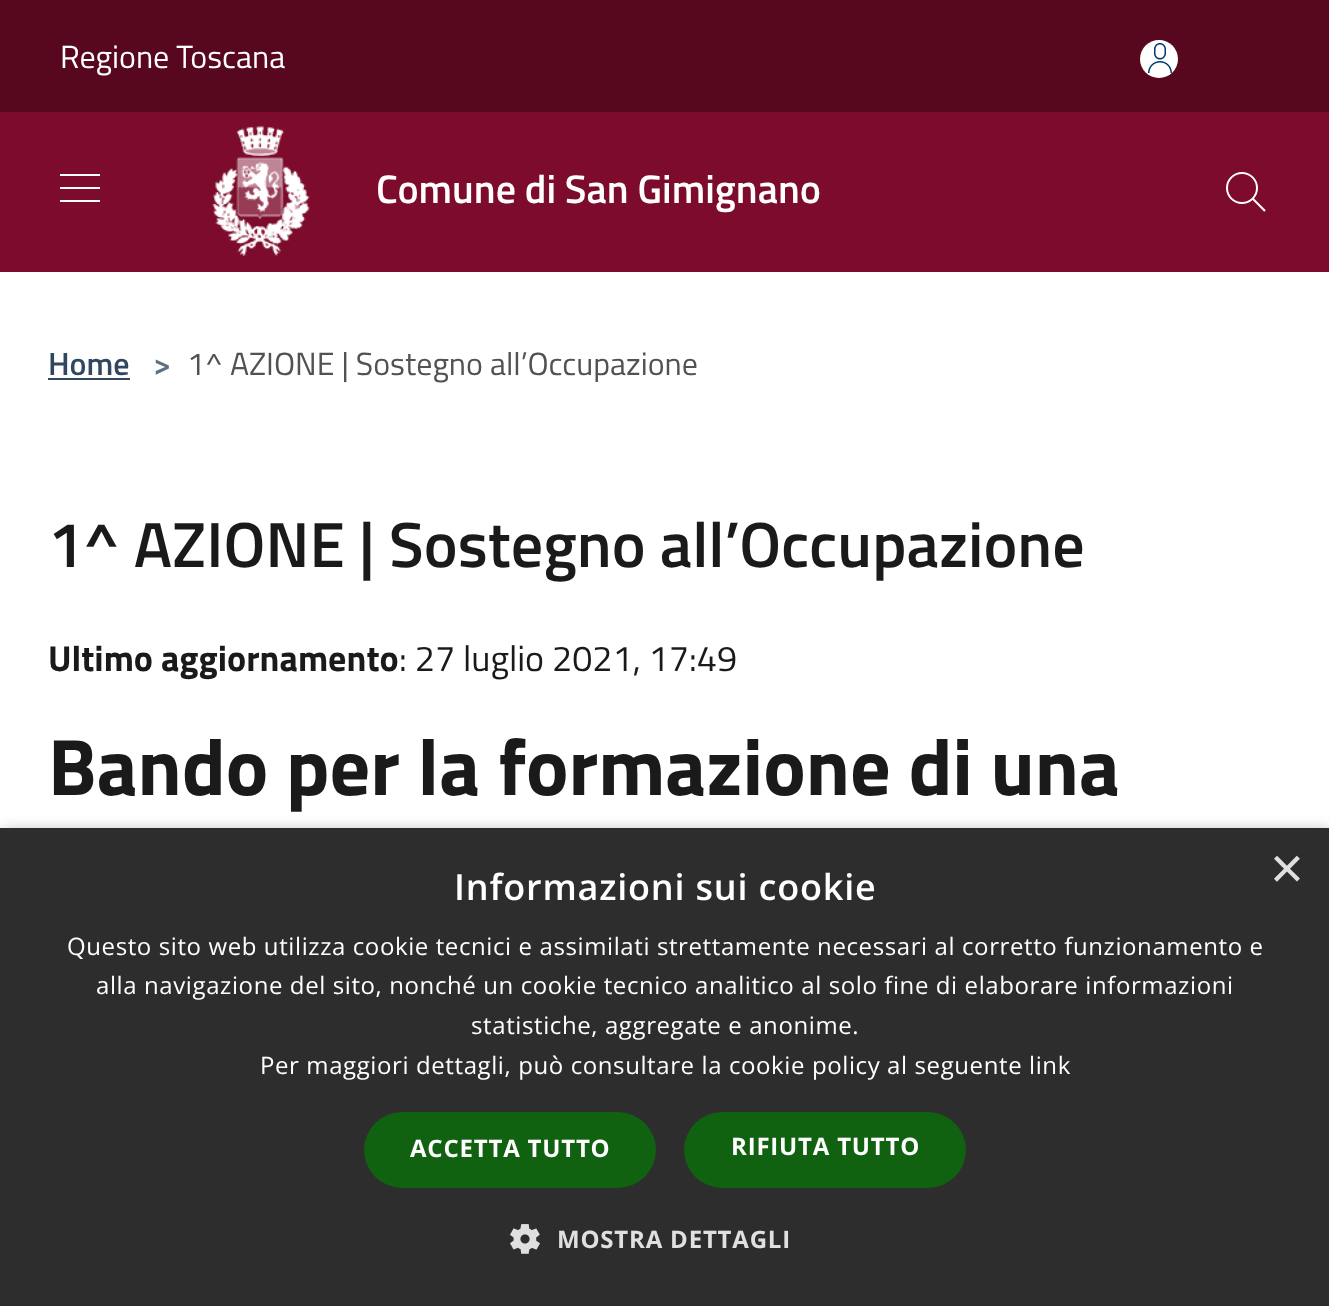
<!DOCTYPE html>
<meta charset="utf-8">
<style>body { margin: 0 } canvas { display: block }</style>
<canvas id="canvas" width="1329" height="1306"></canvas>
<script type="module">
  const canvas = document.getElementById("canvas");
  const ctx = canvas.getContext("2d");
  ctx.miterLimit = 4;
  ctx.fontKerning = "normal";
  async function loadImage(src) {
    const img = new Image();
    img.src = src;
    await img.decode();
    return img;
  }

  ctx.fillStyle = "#ffffff";
  ctx.fillRect(0, 0, 1329, 1306);
  ctx.fillStyle = "#57071e";
  ctx.fillRect(0, 0, 1329, 112);
  ctx.font = "32px Titillium Web";
  ctx.fillStyle = "#ffffff";
  ctx.fillText("Regione Toscana", 60, 68);
  ctx.beginPath();
  ctx.arc(1159, 59, 19, 0, Math.PI * 2);
  ctx.fill();
  ctx.drawImage(await loadImage("img1.png"), 1148, 43, 24, 30);
  ctx.fillStyle = "#7d0b2b";
  ctx.fillRect(0, 112, 1329, 160);
  ctx.drawImage(await loadImage("img2.png"), 60, 174, 40, 28);
  ctx.drawImage(await loadImage("img3.png"), 212, 126, 98, 130);
  ctx.font = "600 40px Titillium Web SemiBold";
  ctx.fillStyle = "#ffffff";
  ctx.fillText("Comune di San Gimignano", 376, 203);
  ctx.drawImage(await loadImage("img4.png"), 1226, 172, 40, 40);
  ctx.font = "600 32px Titillium Web SemiBold";
  ctx.fillStyle = "#30475f";
  ctx.fillText("Home", 48, 375);
  ctx.fillRect(48, 378, 82, 2);
  ctx.fillStyle = "#5d7083";
  ctx.fillText(">", 153, 375);
  ctx.font = "32px Titillium Web";
  ctx.fillStyle = "#525252";
  ctx.fillText("1^ AZIONE | Sostegno all’Occupazione", 187, 375);
  ctx.font = "600 64px Titillium Web SemiBold";
  ctx.fillStyle = "#1a1a1a";
  ctx.fillText("1^ AZIONE | Sostegno all’Occupazione", 48, 567);
  ctx.font = "bold 36px Titillium Web";
  ctx.fillText("Ultimo aggiornamento", 48, 671);
  ctx.font = "36px Titillium Web";
  ctx.fillText(": 27 luglio 2021, 17:49", 399, 671);
  ctx.font = "bold 80px Titillium Web";
  ctx.fillText("Bando per la formazione di una", 48, 795);
  ctx.fillStyle = "rgba(0, 0, 0, 0.35)";
  ctx.filter = "blur(8px)";
  ctx.beginPath();
  ctx.rect(2, 832, 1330, 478);
  ctx.fill();
  ctx.filter = "none";
  ctx.fillStyle = "#2d2d2d";
  ctx.fillRect(0, 828, 1329, 478);
  ctx.font = "58px Liberation Sans";
  ctx.fillStyle = "#e0e0e0";
  ctx.fillText("×", 1270, 888);
  ctx.letterSpacing = "0.8px";
  ctx.font = "600 36px Open Sans";
  ctx.fillStyle = "#ffffff";
  ctx.fillText("Informazioni sui cookie", 454, 900);
  ctx.letterSpacing = "0.6px";
  ctx.font = "24px Open Sans";
  ctx.fillText("Questo sito web utilizza cookie tecnici e assimilati strettamente necessari al corretto funzionamento e", 67, 955);
  ctx.fillText("alla navigazione del sito, nonché un cookie tecnico analitico al solo fine di elaborare informazioni", 96, 994);
  ctx.fillText("statistiche, aggregate e anonime.", 471, 1034);
  ctx.fillText("Per maggiori dettagli, può consultare la cookie policy al seguente link", 260, 1074);
  ctx.fillStyle = "#106110";
  ctx.beginPath();
  ctx.roundRect(364, 1112, 292, 76, 38);
  ctx.fill();
  ctx.letterSpacing = "0.8px";
  ctx.font = "bold 24px Open Sans";
  ctx.fillStyle = "#ffffff";
  ctx.fillText("ACCETTA TUTTO", 410, 1157);
  ctx.fillStyle = "#106110";
  ctx.beginPath();
  ctx.roundRect(684, 1112, 282, 76, 38);
  ctx.fill();
  ctx.fillStyle = "#ffffff";
  ctx.fillText("RIFIUTA TUTTO", 731, 1155);
  ctx.drawImage(await loadImage("img5.png"), 510, 1224, 30, 30);
  ctx.fillStyle = "#e0e0e0";
  ctx.fillText("MOSTRA DETTAGLI", 557, 1248);
</script>
